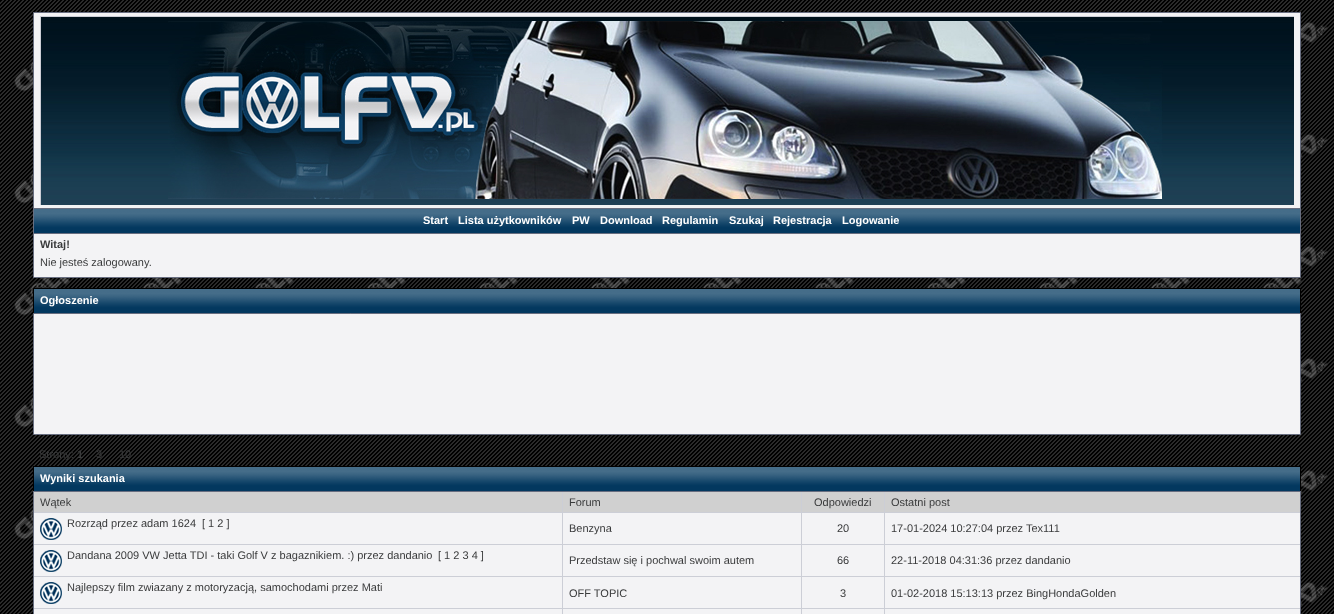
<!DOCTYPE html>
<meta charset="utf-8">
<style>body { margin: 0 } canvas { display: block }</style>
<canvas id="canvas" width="1334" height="614"></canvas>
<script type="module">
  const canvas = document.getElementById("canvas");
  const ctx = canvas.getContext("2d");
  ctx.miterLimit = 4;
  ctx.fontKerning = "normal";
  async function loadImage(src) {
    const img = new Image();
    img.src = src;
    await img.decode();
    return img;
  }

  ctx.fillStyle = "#ffffff";
  ctx.fillRect(0, 0, 1334, 614);
  ctx.drawImage(await loadImage("img1.png"), 0, 0, 1334, 614);
  ctx.fillStyle = "#f3f3f5";
  ctx.beginPath();
  ctx.rect(33.5, 12.5, 1267, 265);
  ctx.fill();
  ctx.strokeStyle = "#686e80";
  ctx.stroke();
  ctx.drawImage(await loadImage("img2.png"), 41, 17, 1253, 188);
  ctx.fillStyle = "#ccced6";
  ctx.fillRect(40, 16, 1254, 1);
  ctx.fillRect(40, 16, 1, 189);
  ctx.drawImage(await loadImage("img3.png"), 168, 21, 995, 178);
  ctx.drawImage(await loadImage("img4.png"), 34, 209, 1266, 24);
  ctx.fillStyle = "#686e80";
  ctx.fillRect(34, 208, 1266, 1);
  ctx.fillRect(34, 233, 1266, 1);
  ctx.font = "bold 11px Liberation Sans";
  ctx.fillStyle = "#ffffff";
  ctx.fillText("Start", 423, 224);
  ctx.fillText("Lista użytkowników", 458, 224);
  ctx.fillText("PW", 572, 224);
  ctx.fillText("Download", 600, 224);
  ctx.fillText("Regulamin", 662, 224);
  ctx.fillText("Szukaj", 729, 224);
  ctx.fillText("Rejestracja", 773, 224);
  ctx.fillText("Logowanie", 842, 224);
  ctx.fillStyle = "#3a3b3c";
  ctx.fillText("Witaj!", 40, 248);
  ctx.font = "11px Liberation Sans";
  ctx.fillText("Nie jesteś zalogowany.", 40, 266);
  ctx.drawImage(await loadImage("img4.png"), 34, 289, 1266, 24);
  ctx.fillStyle = "#000000";
  ctx.fillRect(33, 288, 1268, 1);
  ctx.fillRect(1300, 288, 1, 25);
  ctx.fillRect(33, 288, 1, 25);
  ctx.font = "bold 11px Liberation Sans";
  ctx.fillStyle = "#ffffff";
  ctx.fillText("Ogłoszenie", 40, 304);
  ctx.fillStyle = "#f3f3f5";
  ctx.beginPath();
  ctx.rect(33.5, 313.5, 1267, 121);
  ctx.fill();
  ctx.stroke();
  ctx.font = "11px Liberation Sans";
  ctx.fillStyle = "#3a3b3c";
  ctx.fillText("Strony:", 39, 458);
  ctx.font = "bold 11px Liberation Sans";
  ctx.fillText("1", 77, 458);
  ctx.font = "11px Liberation Sans";
  ctx.fillText("3", 96, 458);
  ctx.fillText("10", 119, 458);
  ctx.drawImage(await loadImage("img4.png"), 34, 467, 1266, 24);
  ctx.fillStyle = "#000000";
  ctx.fillRect(33, 466, 1268, 1);
  ctx.fillRect(1300, 466, 1, 25);
  ctx.fillRect(33, 466, 1, 25);
  ctx.font = "bold 11px Liberation Sans";
  ctx.fillStyle = "#ffffff";
  ctx.fillText("Wyniki szukania", 40, 482);
  ctx.fillStyle = "#f3f3f5";
  ctx.fillRect(34, 513, 1266, 101);
  ctx.strokeRect(33.5, 491.5, 1267, 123);
  ctx.fillStyle = "#d0d0d0";
  ctx.fillRect(34, 492, 528, 20);
  ctx.font = "11px Liberation Sans";
  ctx.fillStyle = "#3a3b3c";
  ctx.fillText("Wątek", 40, 506);
  ctx.fillStyle = "#d0d0d0";
  ctx.fillRect(563, 492, 238, 20);
  ctx.fillStyle = "#ccced6";
  ctx.fillRect(562, 492, 1, 20);
  ctx.fillStyle = "#3a3b3c";
  ctx.fillText("Forum", 569, 506);
  ctx.fillStyle = "#d0d0d0";
  ctx.fillRect(802, 492, 82, 20);
  ctx.fillStyle = "#ccced6";
  ctx.fillRect(801, 492, 1, 20);
  ctx.fillStyle = "#3a3b3c";
  ctx.fillText("Odpowiedzi", 814, 506);
  ctx.fillStyle = "#d0d0d0";
  ctx.fillRect(885, 492, 415, 20);
  ctx.fillStyle = "#ccced6";
  ctx.fillRect(34, 512, 1266, 1);
  ctx.fillRect(34, 544, 1266, 1);
  ctx.fillRect(34, 576, 1266, 1);
  ctx.fillRect(34, 608, 1266, 1);
  ctx.fillRect(884, 492, 1, 122);
  ctx.fillStyle = "#3a3b3c";
  ctx.fillText("Ostatni post", 891, 506);
  ctx.drawImage(await loadImage("img5.png"), 40, 518, 22, 22);
  ctx.fillText("Rozrząd przez adam 1624", 67, 527);
  ctx.fillText("[ 1 2 ]", 202, 527);
  ctx.fillStyle = "#ccced6";
  ctx.fillRect(562, 512, 1, 32);
  ctx.fillStyle = "#3a3b3c";
  ctx.fillText("Benzyna", 569, 532);
  ctx.fillStyle = "#ccced6";
  ctx.fillRect(801, 512, 1, 32);
  ctx.fillStyle = "#3a3b3c";
  ctx.fillText("20", 837, 532);
  ctx.fillText("17-01-2024 10:27:04 przez Tex111", 891, 532);
  ctx.drawImage(await loadImage("img5.png"), 40, 550, 22, 22);
  ctx.fillText("Dandana 2009 VW Jetta TDI - taki Golf V z bagaznikiem. :) przez dandanio", 67, 559);
  ctx.fillText("[ 1 2 3 4 ]", 438, 559);
  ctx.fillStyle = "#ccced6";
  ctx.fillRect(562, 544, 1, 32);
  ctx.fillStyle = "#3a3b3c";
  ctx.fillText("Przedstaw się i pochwal swoim autem", 569, 564);
  ctx.fillStyle = "#ccced6";
  ctx.fillRect(801, 544, 1, 32);
  ctx.fillStyle = "#3a3b3c";
  ctx.fillText("66", 837, 564);
  ctx.fillText("22-11-2018 04:31:36 przez dandanio", 891, 564);
  ctx.drawImage(await loadImage("img5.png"), 40, 582, 22, 22);
  ctx.fillText("Najlepszy film zwiazany z motoryzacją, samochodami przez Mati", 67, 591);
  ctx.fillStyle = "#ccced6";
  ctx.fillRect(562, 576, 1, 32);
  ctx.fillStyle = "#3a3b3c";
  ctx.fillText("OFF TOPIC", 569, 597);
  ctx.fillStyle = "#ccced6";
  ctx.fillRect(801, 576, 1, 32);
  ctx.fillStyle = "#3a3b3c";
  ctx.fillText("3", 840, 597);
  ctx.fillText("01-02-2018 15:13:13 przez BingHondaGolden", 891, 597);
  ctx.fillStyle = "#ccced6";
  ctx.fillRect(562, 608, 1, 6);
  ctx.fillRect(801, 608, 1, 6);
</script>
